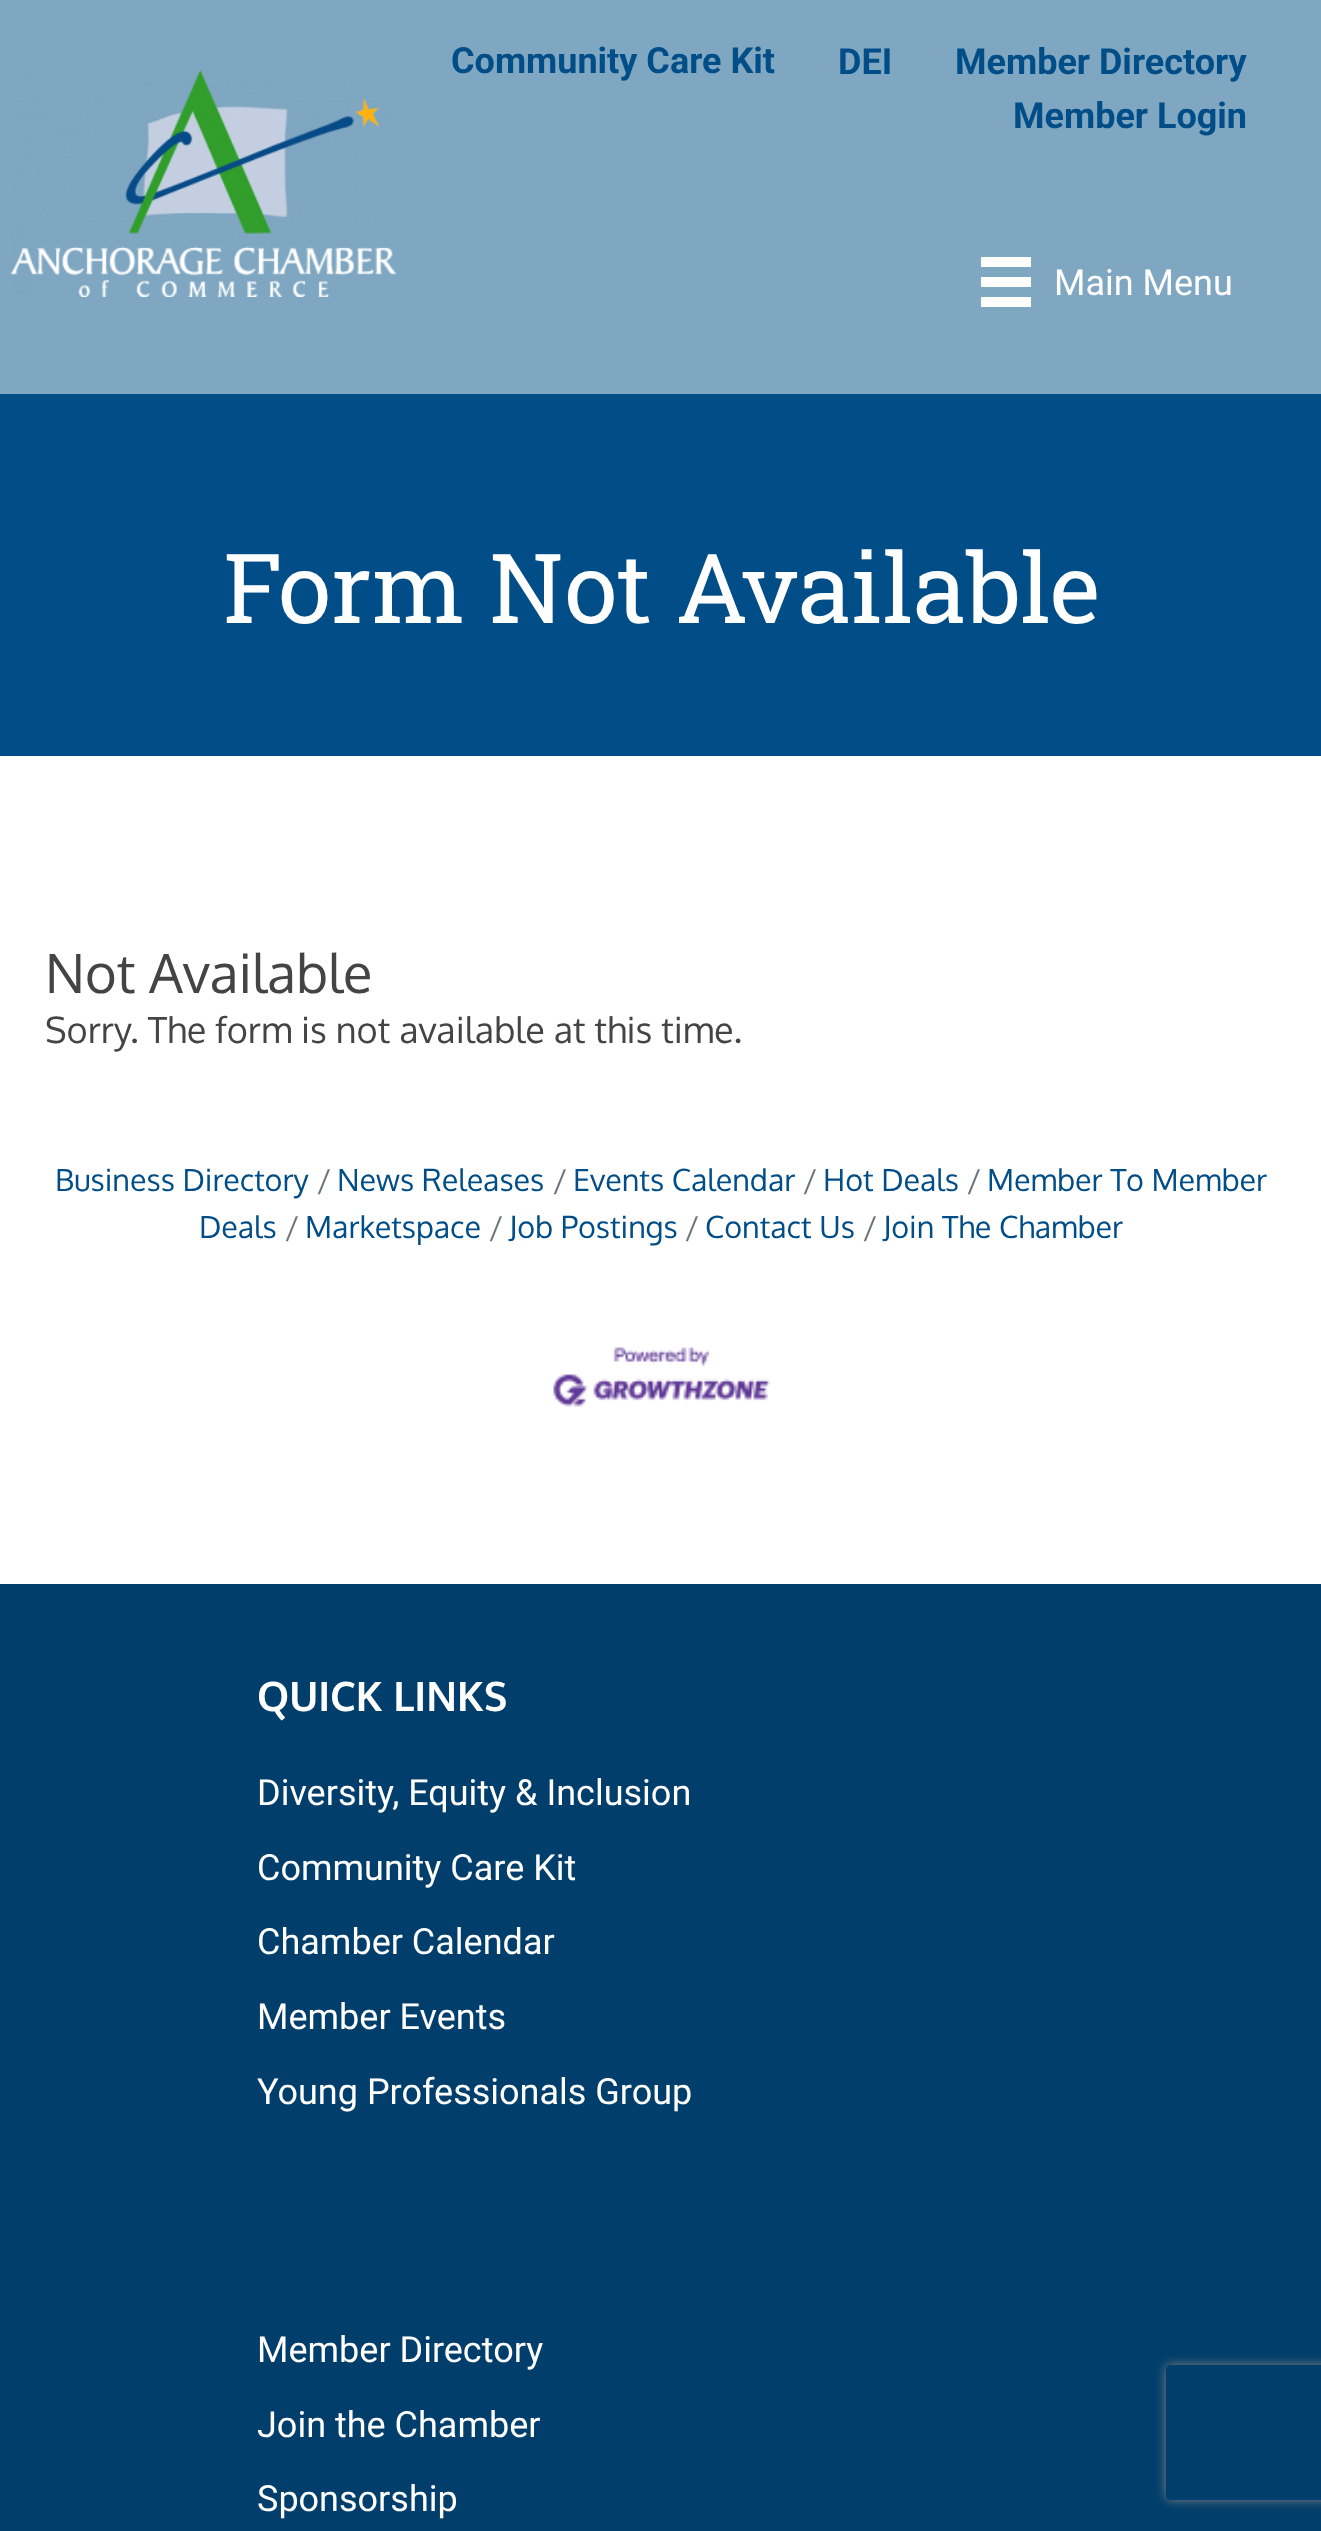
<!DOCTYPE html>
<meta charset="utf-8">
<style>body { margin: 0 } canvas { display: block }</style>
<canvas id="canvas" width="1321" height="2531"></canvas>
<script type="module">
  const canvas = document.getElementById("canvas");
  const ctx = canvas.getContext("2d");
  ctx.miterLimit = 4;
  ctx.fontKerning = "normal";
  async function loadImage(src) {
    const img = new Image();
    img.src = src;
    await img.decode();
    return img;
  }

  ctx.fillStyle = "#ffffff";
  ctx.fillRect(0, 0, 1321, 2531);
  ctx.fillStyle = "#7fa7c2";
  ctx.fillRect(0, 0, 1321, 394);
  ctx.drawImage(await loadImage("img1.png"), 11, 69, 385, 228);
  ctx.font = "bold 36px Roboto";
  ctx.fillStyle = "#004d87";
  ctx.fillText("Community Care Kit", 451, 73);
  ctx.fillText("DEI", 838, 74);
  ctx.fillText("Member Directory", 955, 74);
  ctx.fillText("Member Login", 1013, 128);
  ctx.fillStyle = "#ffffff";
  ctx.fillRect(981, 257, 50, 10);
  ctx.fillRect(981, 277, 50, 10);
  ctx.fillRect(981, 297, 50, 10);
  ctx.font = "36px Roboto";
  ctx.fillText("Main Menu", 1054, 295);
  ctx.fillStyle = "#004d87";
  ctx.fillRect(0, 394, 1321, 362);
  ctx.font = "96.75px Roboto Slab";
  ctx.fillStyle = "#ffffff";
  ctx.fillText("Form Not Available", 223, 623);
  ctx.font = "54px Oxygen";
  ctx.fillStyle = "#444444";
  ctx.fillText("Not Available", 45, 993);
  ctx.font = "36px Oxygen";
  ctx.fillText("Sorry. The form is not available at this time.", 45, 1043);
  ctx.font = "30.5px Oxygen";
  ctx.fillStyle = "#004d87";
  ctx.fillText("Business Directory", 55, 1191);
  ctx.fillStyle = "#6c757d";
  ctx.fillText("/", 967, 1191);
  ctx.fillStyle = "#004d87";
  ctx.fillText("Member To Member", 987, 1191);
  ctx.fillText("Deals", 199, 1238);
  ctx.fillStyle = "#6c757d";
  ctx.fillText("/", 317, 1191);
  ctx.fillStyle = "#004d87";
  ctx.fillText("News Releases", 337, 1191);
  ctx.fillStyle = "#6c757d";
  ctx.fillText("/", 553, 1191);
  ctx.fillStyle = "#004d87";
  ctx.fillText("Events Calendar", 573, 1191);
  ctx.fillStyle = "#6c757d";
  ctx.fillText("/", 803, 1191);
  ctx.fillStyle = "#004d87";
  ctx.fillText("Hot Deals", 823, 1191);
  ctx.fillStyle = "#6c757d";
  ctx.fillText("/", 285, 1238);
  ctx.fillStyle = "#004d87";
  ctx.fillText("Marketspace", 305, 1238);
  ctx.fillStyle = "#6c757d";
  ctx.fillText("/", 489, 1238);
  ctx.fillStyle = "#004d87";
  ctx.fillText("Job Postings", 509, 1238);
  ctx.fillStyle = "#6c757d";
  ctx.fillText("/", 685, 1238);
  ctx.fillStyle = "#004d87";
  ctx.fillText("Contact Us", 705, 1238);
  ctx.fillStyle = "#6c757d";
  ctx.fillText("/", 863, 1238);
  ctx.fillStyle = "#004d87";
  ctx.fillText("Join The Chamber", 883, 1238);
  ctx.drawImage(await loadImage("img2.png"), 553, 1347, 217, 60);
  ctx.fillStyle = "#013e6b";
  ctx.fillRect(0, 1584, 1321, 947);
  ctx.font = "bold 40.5px Oxygen";
  ctx.fillStyle = "#ffffff";
  ctx.fillText("QUICK LINKS", 257, 1711);
  ctx.font = "36px Roboto";
  ctx.fillText("Diversity, Equity & Inclusion", 257, 1805);
  ctx.fillText("Community Care Kit", 257, 1880);
  ctx.fillText("Chamber Calendar", 257, 1954);
  ctx.fillText("Member Events", 257, 2029);
  ctx.fillText("Young Professionals Group", 257, 2104);
  ctx.fillText("Member Directory", 257, 2362);
  ctx.fillText("Join the Chamber", 257, 2437);
  ctx.fillText("Sponsorship", 257, 2511);
  ctx.save();
  ctx.beginPath();
  ctx.moveTo(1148, 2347);
  ctx.lineTo(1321, 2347);
  ctx.lineTo(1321, 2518);
  ctx.lineTo(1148, 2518);
  ctx.closePath();
  ctx.moveTo(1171, 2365);
  ctx.lineTo(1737, 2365);
  ctx.bezierCurveTo(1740, 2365, 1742, 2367, 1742, 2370);
  ctx.lineTo(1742, 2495);
  ctx.bezierCurveTo(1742, 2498, 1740, 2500, 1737, 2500);
  ctx.lineTo(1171, 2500);
  ctx.bezierCurveTo(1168, 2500, 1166, 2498, 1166, 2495);
  ctx.lineTo(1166, 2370);
  ctx.bezierCurveTo(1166, 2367, 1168, 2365, 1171, 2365);
  ctx.closePath();
  ctx.clip("evenodd");
  ctx.fillStyle = "#808080";
  ctx.filter = "blur(5.5px)";
  ctx.beginPath();
  ctx.roundRect(1166, 2365, 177, 135, 5);
  ctx.fill();
  ctx.filter = "none";
  ctx.restore();
</script>
